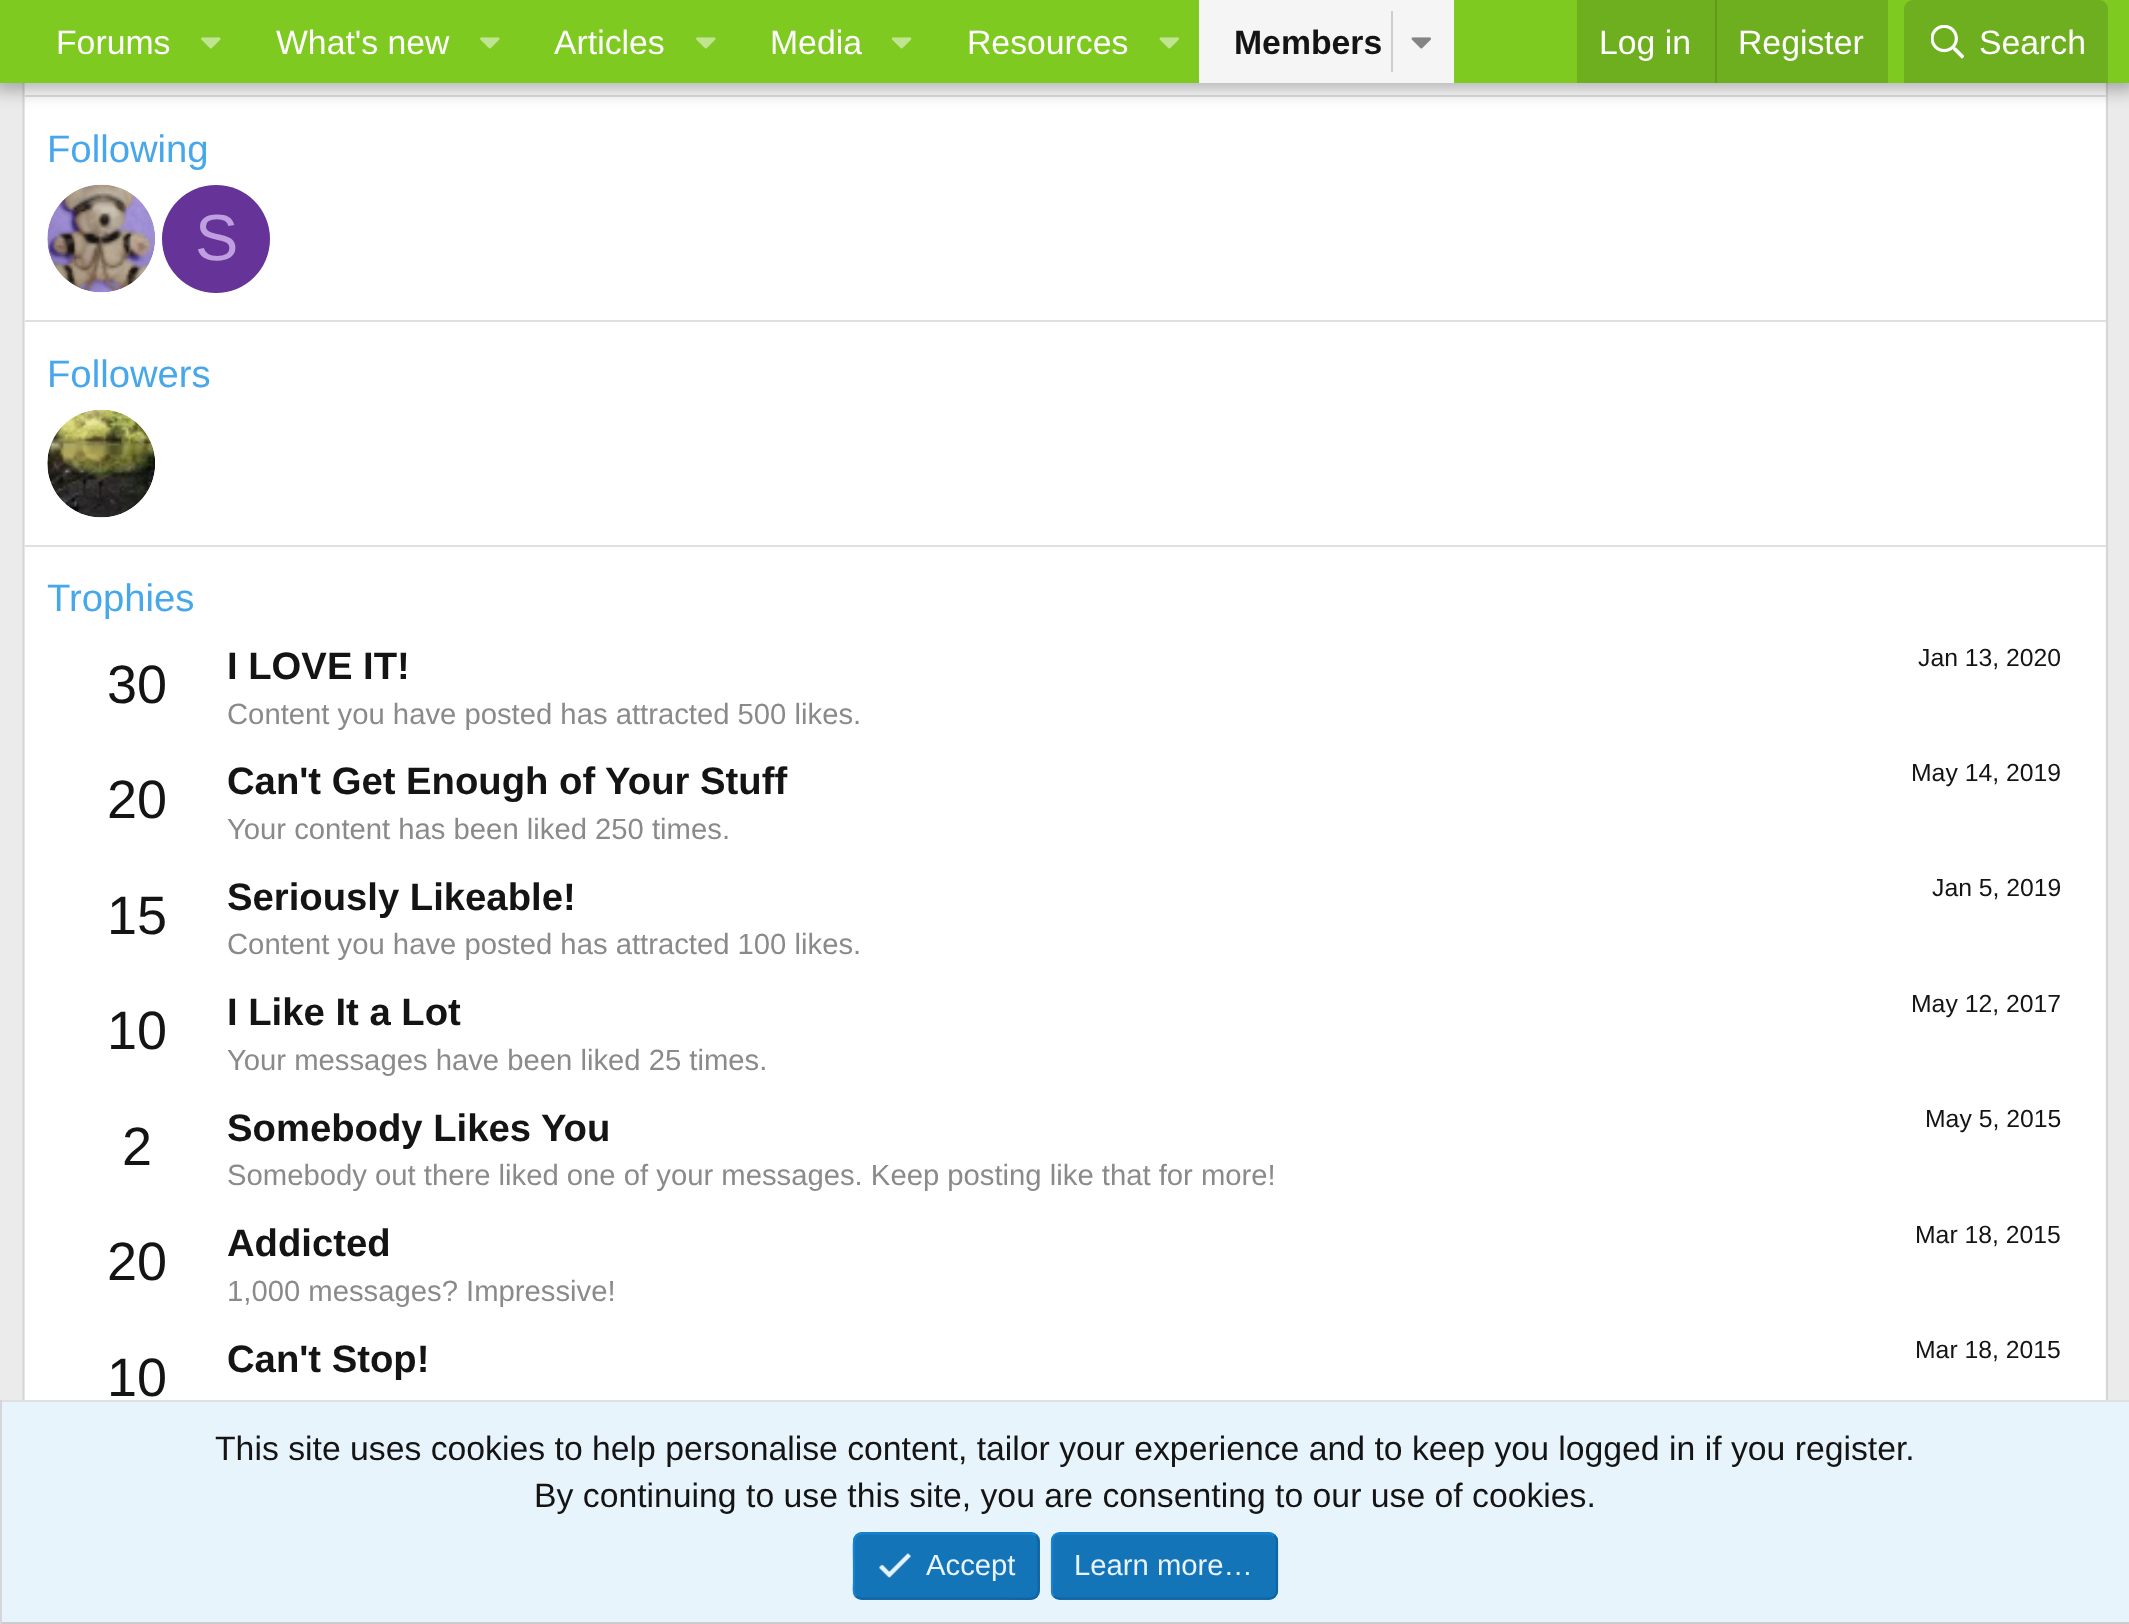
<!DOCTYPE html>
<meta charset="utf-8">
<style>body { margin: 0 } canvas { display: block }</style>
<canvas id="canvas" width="2129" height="1624"></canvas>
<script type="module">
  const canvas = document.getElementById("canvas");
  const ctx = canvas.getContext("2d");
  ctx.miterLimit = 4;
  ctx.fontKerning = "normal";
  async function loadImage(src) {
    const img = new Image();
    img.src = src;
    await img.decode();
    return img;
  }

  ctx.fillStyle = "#ebebeb";
  ctx.fillRect(0, 0, 2129, 1624);
  ctx.fillStyle = "#ffffff";
  ctx.fillRect(24, 83, 2082, 1317);
  ctx.beginPath();
  ctx.moveTo(2105, -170);
  ctx.bezierCurveTo(2106.5, -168.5, 2107, -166.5, 2107, -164);
  ctx.lineTo(2107, 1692);
  ctx.bezierCurveTo(2107, 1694, 2106.5, 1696, 2105, 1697.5);
  ctx.strokeStyle = "#d6d6d6";
  ctx.lineWidth = 2.2;
  ctx.stroke();
  ctx.beginPath();
  ctx.moveTo(26, 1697.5);
  ctx.bezierCurveTo(24.5, 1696, 23.5, 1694, 23.5, 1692);
  ctx.lineTo(23.5, -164);
  ctx.bezierCurveTo(23.5, -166.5, 24.5, -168.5, 26, -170);
  ctx.stroke();
  ctx.fillStyle = "#e0e0e0";
  ctx.fillRect(25, 95, 2081, 2);
  ctx.fillStyle = "rgba(0, 0, 0, 0.3)";
  ctx.filter = "blur(9px)";
  ctx.beginPath();
  ctx.rect(-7, -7, 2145, 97);
  ctx.fill();
  ctx.filter = "none";
  ctx.fillStyle = "#7eca21";
  ctx.fillRect(0, 0, 2129, 83);
  ctx.font = "33.75px Liberation Sans";
  ctx.fillStyle = "#ffffff";
  ctx.fillText("Forums", 56, 54);
  ctx.drawImage(await loadImage("img1.png"), 201, 37, 20, 12);
  ctx.fillText("What's new", 276, 54);
  ctx.drawImage(await loadImage("img1.png"), 480, 37, 20, 12);
  ctx.fillText("Articles", 554, 54);
  ctx.drawImage(await loadImage("img1.png"), 696, 37, 20, 12);
  ctx.fillText("Media", 770, 54);
  ctx.drawImage(await loadImage("img2.png"), 891, 37, 21, 12);
  ctx.fillText("Resources", 967, 54);
  ctx.drawImage(await loadImage("img3.png"), 1159, 37, 20, 12);
  ctx.fillStyle = "#f5f5f5";
  ctx.fillRect(1199, 0, 255, 83);
  ctx.font = "bold 33.75px Liberation Sans";
  ctx.fillStyle = "#141414";
  ctx.fillText("Members", 1234, 54);
  ctx.fillStyle = "#cecece";
  ctx.fillRect(1391, 11, 2, 61);
  ctx.drawImage(await loadImage("img4.png"), 1411, 37, 20, 12);
  ctx.fillStyle = "#6eaf1f";
  ctx.fillRect(1577, 0, 311, 83);
  ctx.font = "33.75px Liberation Sans";
  ctx.fillStyle = "#ffffff";
  ctx.fillText("Log in", 1599, 54);
  ctx.fillStyle = "#61981d";
  ctx.fillRect(1715, 0, 2, 83);
  ctx.fillStyle = "#ffffff";
  ctx.fillText("Register", 1738, 54);
  ctx.fillStyle = "#6eaf1f";
  ctx.beginPath();
  ctx.roundRect(1904, 0, 204, 83, [9, 9, 0, 0]);
  ctx.fill();
  ctx.drawImage(await loadImage("img5.png"), 1931, 25, 33, 34);
  ctx.fillStyle = "#ffffff";
  ctx.fillText("Search", 1979, 54);
  ctx.font = "38.25px Liberation Sans";
  ctx.fillStyle = "#47a7eb";
  ctx.fillText("Following", 47, 162);
  ctx.drawImage(await loadImage("img6.png"), 47, 184, 108, 109);
  ctx.fillStyle = "#663399";
  ctx.beginPath();
  ctx.arc(216, 239, 54, 0, Math.PI * 2);
  ctx.fill();
  ctx.font = "65px Liberation Sans";
  ctx.fillStyle = "#bf9fdf";
  ctx.fillText("S", 195, 260);
  ctx.fillStyle = "#e0e0e0";
  ctx.fillRect(25, 320, 2081, 2);
  ctx.font = "38.25px Liberation Sans";
  ctx.fillStyle = "#47a7eb";
  ctx.fillText("Followers", 47, 387);
  ctx.drawImage(await loadImage("img7.png"), 47, 409, 108, 109);
  ctx.fillStyle = "#e0e0e0";
  ctx.fillRect(25, 545, 2081, 2);
  ctx.fillStyle = "#47a7eb";
  ctx.fillText("Trophies", 47, 611);
  ctx.font = "54px Liberation Sans";
  ctx.fillStyle = "#141414";
  ctx.fillText("30", 107, 703);
  ctx.font = "bold 38.25px Liberation Sans";
  ctx.fillText("I LOVE IT!", 227, 679);
  ctx.font = "24.75px Liberation Sans";
  ctx.fillText("Jan 13, 2020", 1918, 666);
  ctx.font = "29.25px Liberation Sans";
  ctx.fillStyle = "#8a8a8a";
  ctx.fillText("Content you have posted has attracted 500 likes.", 227, 724);
  ctx.font = "54px Liberation Sans";
  ctx.fillStyle = "#141414";
  ctx.fillText("20", 107, 818);
  ctx.font = "bold 38.25px Liberation Sans";
  ctx.fillText("Can't Get Enough of Your Stuff", 227, 794);
  ctx.font = "24.75px Liberation Sans";
  ctx.fillText("May 14, 2019", 1911, 781);
  ctx.font = "29.25px Liberation Sans";
  ctx.fillStyle = "#8a8a8a";
  ctx.fillText("Your content has been liked 250 times.", 227, 839);
  ctx.font = "54px Liberation Sans";
  ctx.fillStyle = "#141414";
  ctx.fillText("15", 107, 934);
  ctx.font = "bold 38.25px Liberation Sans";
  ctx.fillText("Seriously Likeable!", 227, 910);
  ctx.font = "24.75px Liberation Sans";
  ctx.fillText("Jan 5, 2019", 1932, 896);
  ctx.font = "29.25px Liberation Sans";
  ctx.fillStyle = "#8a8a8a";
  ctx.fillText("Content you have posted has attracted 100 likes.", 227, 954);
  ctx.font = "54px Liberation Sans";
  ctx.fillStyle = "#141414";
  ctx.fillText("10", 107, 1049);
  ctx.font = "bold 38.25px Liberation Sans";
  ctx.fillText("I Like It a Lot", 227, 1025);
  ctx.font = "24.75px Liberation Sans";
  ctx.fillText("May 12, 2017", 1911, 1012);
  ctx.font = "29.25px Liberation Sans";
  ctx.fillStyle = "#8a8a8a";
  ctx.fillText("Your messages have been liked 25 times.", 227, 1070);
  ctx.font = "54px Liberation Sans";
  ctx.fillStyle = "#141414";
  ctx.fillText("2", 122, 1165);
  ctx.font = "bold 38.25px Liberation Sans";
  ctx.fillText("Somebody Likes You", 227, 1141);
  ctx.font = "24.75px Liberation Sans";
  ctx.fillText("May 5, 2015", 1925, 1127);
  ctx.font = "29.25px Liberation Sans";
  ctx.fillStyle = "#8a8a8a";
  ctx.fillText("Somebody out there liked one of your messages. Keep posting like that for more!", 227, 1185);
  ctx.font = "54px Liberation Sans";
  ctx.fillStyle = "#141414";
  ctx.fillText("20", 107, 1280);
  ctx.font = "bold 38.25px Liberation Sans";
  ctx.fillText("Addicted", 227, 1256);
  ctx.font = "24.75px Liberation Sans";
  ctx.fillText("Mar 18, 2015", 1915, 1243);
  ctx.font = "29.25px Liberation Sans";
  ctx.fillStyle = "#8a8a8a";
  ctx.fillText("1,000 messages? Impressive!", 227, 1301);
  ctx.font = "54px Liberation Sans";
  ctx.fillStyle = "#141414";
  ctx.fillText("10", 107, 1396);
  ctx.font = "bold 38.25px Liberation Sans";
  ctx.fillText("Can't Stop!", 227, 1372);
  ctx.font = "24.75px Liberation Sans";
  ctx.fillText("Mar 18, 2015", 1915, 1358);
  ctx.fillStyle = "#e8f4fc";
  ctx.fillRect(2, 1402, 2127, 220);
  ctx.fillStyle = "#e0e0e0";
  ctx.fillRect(0, 1400, 2129, 2);
  ctx.fillStyle = "#cccccc";
  ctx.fillRect(0, 1622, 2129, 2);
  ctx.fillStyle = "#d6d6d6";
  ctx.fillRect(0, 1400, 2, 224);
  ctx.font = "33.75px Liberation Sans";
  ctx.fillStyle = "#141414";
  ctx.fillText("This site uses cookies to help personalise content, tailor your experience and to keep you logged in if you register.", 215, 1460);
  ctx.fillText("By continuing to use this site, you are consenting to our use of cookies.", 534, 1507);
  ctx.fillStyle = "#1474b8";
  ctx.beginPath();
  ctx.roundRect(853, 1532, 187, 68, 9);
  ctx.fill();
  ctx.beginPath();
  ctx.moveTo(1036, 1535.5);
  ctx.bezierCurveTo(1039.5, 1539, 1038.5, 1545, 1038.5, 1549.5);
  ctx.lineTo(1038.5, 1566);
  ctx.bezierCurveTo(1038.5, 1604.5, 1043.5, 1598.5, 1002.5, 1598.5);
  ctx.lineTo(862, 1598.5);
  ctx.bezierCurveTo(859.5, 1598.5, 857.5, 1598, 856, 1596.5);
  ctx.strokeStyle = "#1265a1";
  ctx.stroke();
  ctx.beginPath();
  ctx.moveTo(856, 1596.5);
  ctx.bezierCurveTo(852.5, 1593, 854, 1587, 854, 1582.5);
  ctx.lineTo(854, 1566);
  ctx.bezierCurveTo(854, 1527.5, 849, 1533.5, 890, 1533.5);
  ctx.lineTo(1030.5, 1533.5);
  ctx.bezierCurveTo(1032.5, 1533.5, 1034.5, 1534, 1036, 1535.5);
  ctx.strokeStyle = "#1782cf";
  ctx.stroke();
  ctx.drawImage(await loadImage("img8.png"), 879, 1553, 33, 25);
  ctx.font = "29.25px Liberation Sans";
  ctx.fillStyle = "#e8f4fc";
  ctx.fillText("Accept", 926, 1575);
  ctx.fillStyle = "#1474b8";
  ctx.beginPath();
  ctx.roundRect(1051, 1532, 227, 68, 9);
  ctx.fill();
  ctx.beginPath();
  ctx.moveTo(1274.5, 1535.5);
  ctx.bezierCurveTo(1276, 1537, 1277, 1539, 1277, 1541);
  ctx.lineTo(1277, 1591);
  ctx.bezierCurveTo(1277, 1593, 1276, 1595, 1274.5, 1596.5);
  ctx.bezierCurveTo(1273, 1598, 1271, 1598.5, 1269, 1598.5);
  ctx.lineTo(1060, 1598.5);
  ctx.bezierCurveTo(1057.5, 1598.5, 1055.5, 1598, 1054, 1596.5);
  ctx.strokeStyle = "#1265a1";
  ctx.stroke();
  ctx.beginPath();
  ctx.moveTo(1054, 1596.5);
  ctx.bezierCurveTo(1052.5, 1595, 1052, 1593, 1052, 1591);
  ctx.lineTo(1052, 1541);
  ctx.bezierCurveTo(1052, 1539, 1052.5, 1537, 1054, 1535.5);
  ctx.bezierCurveTo(1055.5, 1534, 1057.5, 1533.5, 1060, 1533.5);
  ctx.lineTo(1269, 1533.5);
  ctx.bezierCurveTo(1271, 1533.5, 1273, 1534, 1274.5, 1535.5);
  ctx.strokeStyle = "#1782cf";
  ctx.stroke();
  ctx.fillStyle = "#e8f4fc";
  ctx.fillText("Learn more…", 1074, 1575);
</script>
